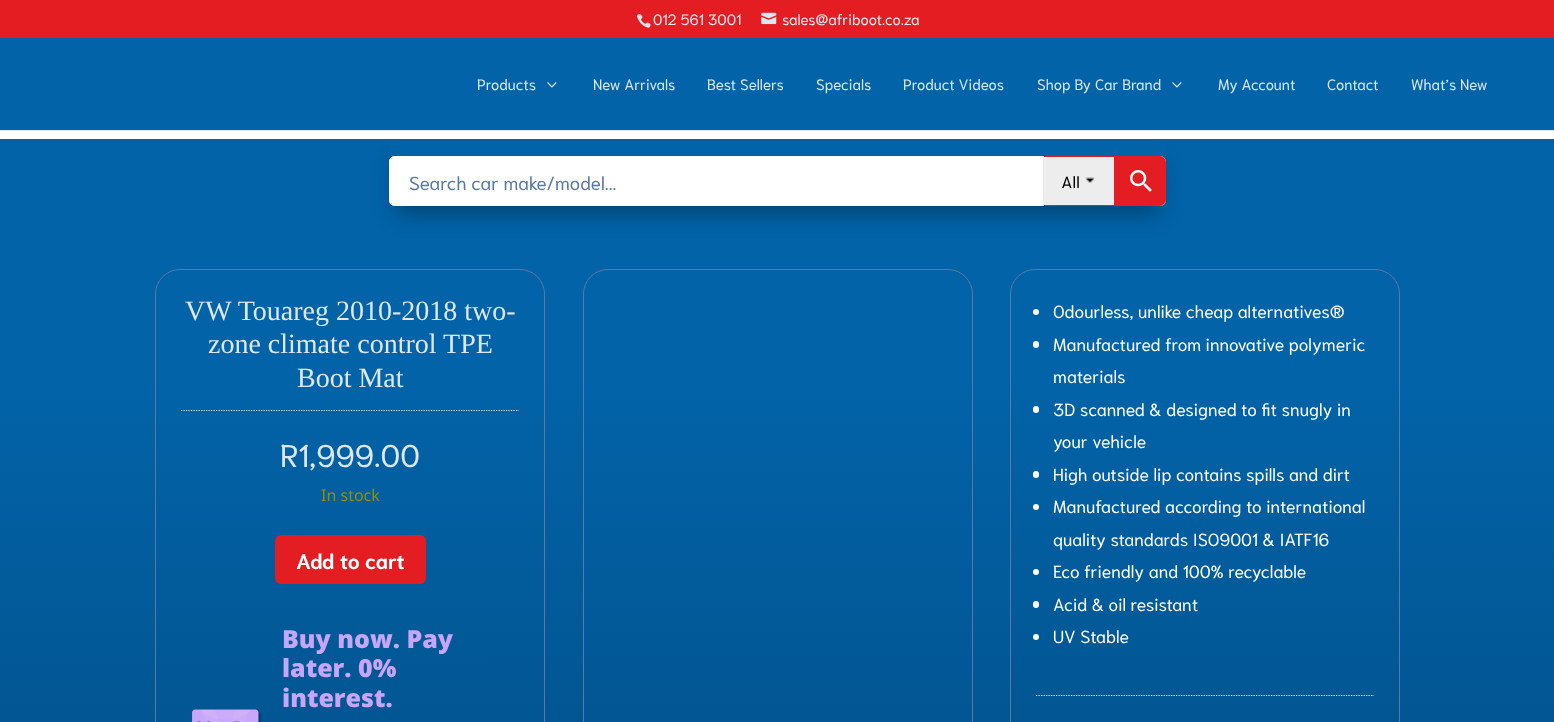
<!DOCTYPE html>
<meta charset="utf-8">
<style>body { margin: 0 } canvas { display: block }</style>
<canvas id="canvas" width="1554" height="722"></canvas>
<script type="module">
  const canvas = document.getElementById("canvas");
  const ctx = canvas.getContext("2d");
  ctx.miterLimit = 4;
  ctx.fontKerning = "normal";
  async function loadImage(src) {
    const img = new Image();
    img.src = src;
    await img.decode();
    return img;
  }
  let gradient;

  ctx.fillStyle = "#ffffff";
  ctx.fillRect(0, 0, 1554, 722);
  ctx.fillStyle = "#e31d21";
  ctx.fillRect(0, 0, 1554, 38);
  ctx.drawImage(await loadImage("img1.png"), 636, 14, 15, 14);
  ctx.font = "15px Niramit";
  ctx.fillStyle = "#dee7ef";
  ctx.fillText("012 561 3001", 653, 25);
  ctx.drawImage(await loadImage("img2.png"), 761, 12, 16, 13);
  ctx.fillText("sales@afriboot.co.za", 782, 25);
  gradient = ctx.createLinearGradient(777, 139, 778, 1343);
  gradient.addColorStop(0.2, "#0263a8");
  gradient.addColorStop(1, "#013e6b");
  ctx.fillStyle = gradient;
  ctx.fillRect(0, 139, 1554, 583);
  ctx.save();
  ctx.beginPath();
  ctx.moveTo(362, 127);
  ctx.lineTo(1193, 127);
  ctx.lineTo(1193, 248);
  ctx.lineTo(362, 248);
  ctx.closePath();
  ctx.moveTo(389, 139);
  ctx.lineTo(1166, 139);
  ctx.lineTo(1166, 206);
  ctx.lineTo(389, 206);
  ctx.closePath();
  ctx.clip("evenodd");
  ctx.fillStyle = "rgba(0, 0, 0, 0.3)";
  ctx.filter = "blur(11px)";
  ctx.beginPath();
  ctx.rect(396, 161, 763, 53);
  ctx.fill();
  ctx.filter = "none";
  ctx.restore();
  ctx.fillStyle = "#e5e5e5";
  ctx.fillRect(0, 130, 1554, 1);
  ctx.fillStyle = "#0263a8";
  ctx.fillRect(0, 38, 1554, 92);
  ctx.fillStyle = "#d7e6f1";
  ctx.fillText("Products", 477, 90);
  ctx.drawImage(await loadImage("img3.png"), 547, 82, 10, 6);
  ctx.fillText("New Arrivals", 593, 90);
  ctx.fillText("Best Sellers", 707, 90);
  ctx.fillText("Specials", 816, 90);
  ctx.fillText("Product Videos", 903, 90);
  ctx.fillText("Shop By Car Brand", 1037, 90);
  ctx.drawImage(await loadImage("img3.png"), 1172, 82, 10, 6);
  ctx.fillText("My Account", 1218, 90);
  ctx.fillText("Contact", 1327, 90);
  ctx.fillText("What’s New", 1411, 90);
  ctx.fillStyle = "#ffffff";
  ctx.beginPath();
  ctx.roundRect(389, 156, 777, 50, 6);
  ctx.fill();
  ctx.fillStyle = "#ededed";
  ctx.fillRect(1043, 157, 71, 48);
  ctx.fillStyle = "#e31d21";
  ctx.fillRect(1043, 156, 72, 1);
  ctx.fillRect(1043, 205, 72, 1);
  ctx.fillStyle = "#ffffff";
  ctx.beginPath();
  ctx.moveTo(395, 156);
  ctx.lineTo(1044, 156);
  ctx.lineTo(1044, 206);
  ctx.lineTo(395, 206);
  ctx.bezierCurveTo(392, 206, 389, 203, 389, 200);
  ctx.lineTo(389, 162);
  ctx.bezierCurveTo(389, 159, 392, 156, 395, 156);
  ctx.closePath();
  ctx.moveTo(395, 158);
  ctx.lineTo(1044, 158);
  ctx.lineTo(1044, 205);
  ctx.lineTo(395, 205);
  ctx.bezierCurveTo(392, 205, 390, 203, 390, 200);
  ctx.lineTo(390, 162);
  ctx.bezierCurveTo(390, 160, 392, 158, 395, 158);
  ctx.closePath();
  ctx.fill("evenodd");
  ctx.font = "18.75px Niramit";
  ctx.fillStyle = "#5a79a5";
  ctx.fillText("Search car make/model...", 409, 190);
  ctx.save();
  ctx.beginPath();
  ctx.rect(1061, 175, 34, 13);
  ctx.clip();
  ctx.font = "17.5px Niramit";
  ctx.fillStyle = "#000000";
  ctx.fillText("All", 1061, 189);
  ctx.restore();
  ctx.drawImage(await loadImage("img4.png"), 1085, 177, 10, 6);
  ctx.fillStyle = "#e31d21";
  ctx.beginPath();
  ctx.roundRect(1114.5, 156.5, 51, 49, [0, 5.5, 5.5, 0]);
  ctx.fill();
  ctx.strokeStyle = "#e31d21";
  ctx.stroke();
  ctx.drawImage(await loadImage("img5.png"), 1130, 170, 22, 22);
  ctx.beginPath();
  ctx.roundRect(155.5, 269.5, 389, 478, 24.5);
  ctx.strokeStyle = "#5a79a5";
  ctx.stroke();
  ctx.font = "28px Liberation Serif";
  ctx.fillStyle = "#dee7ef";
  ctx.fillText("VW Touareg 2010-2018 two-", 185, 320);
  ctx.fillText("zone climate control TPE", 208, 353);
  ctx.fillText("Boot Mat", 297, 387);
  ctx.beginPath();
  ctx.moveTo(181, 410.5);
  ctx.lineTo(519, 410.5);
  ctx.strokeStyle = "#dee7ef";
  ctx.lineWidth = 1.2;
  ctx.setLineDash([1.25, 1.25]);
  ctx.stroke();
  ctx.font = "31.5px Niramit";
  ctx.fillText("R1,999.00", 280, 467);
  ctx.font = "16px Noto Sans";
  ctx.fillStyle = "#958e09";
  ctx.fillText("In stock", 321, 501);
  ctx.fillStyle = "#e31d21";
  ctx.beginPath();
  ctx.roundRect(275, 535, 151, 49, 6);
  ctx.fill();
  ctx.font = "bold 21px Niramit";
  ctx.fillStyle = "#ffffff";
  ctx.fillText("Add to cart", 296, 569);
  ctx.font = "800 25px Open Sans";
  ctx.fillStyle = "#c7a5f9";
  ctx.fillText("Buy now. Pay", 282, 648);
  ctx.fillText("later. 0%", 282, 677);
  ctx.fillText("interest.", 282, 707);
  ctx.drawImage(await loadImage("img6.png"), 192, 709, 70, 13);
  ctx.beginPath();
  ctx.roundRect(583.5, 269.5, 389, 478, 24.5);
  ctx.strokeStyle = "#5a79a5";
  ctx.lineWidth = 1;
  ctx.setLineDash([]);
  ctx.stroke();
  ctx.beginPath();
  ctx.roundRect(1010.5, 269.5, 389, 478, 24.5);
  ctx.stroke();
  ctx.fillStyle = "#ffffff";
  ctx.beginPath();
  ctx.arc(1036, 312, 3, 0, Math.PI * 2);
  ctx.fill();
  ctx.font = "17.5px Niramit";
  ctx.fillText("Odourless, unlike cheap alternatives®", 1053, 318);
  ctx.beginPath();
  ctx.roundRect(1033, 341, 6, 7, 3);
  ctx.fill();
  ctx.fillText("Manufactured from innovative polymeric", 1053, 351);
  ctx.fillText("materials", 1053, 383);
  ctx.beginPath();
  ctx.roundRect(1033, 406, 6, 7, 3);
  ctx.fill();
  ctx.fillText("3D scanned & designed to fit snugly in", 1053, 416);
  ctx.fillText("your vehicle", 1053, 448);
  ctx.beginPath();
  ctx.roundRect(1033, 471, 6, 7, 3);
  ctx.fill();
  ctx.fillText("High outside lip contains spills and dirt", 1053, 481);
  ctx.beginPath();
  ctx.arc(1036, 507, 3, 0, Math.PI * 2);
  ctx.fill();
  ctx.fillText("Manufactured according to international", 1053, 513);
  ctx.fillText("quality standards ISO9001 & IATF16", 1053, 546);
  ctx.beginPath();
  ctx.arc(1036, 572, 3, 0, Math.PI * 2);
  ctx.fill();
  ctx.fillText("Eco friendly and 100% recyclable", 1053, 578);
  ctx.beginPath();
  ctx.roundRect(1033, 601, 6, 7, 3);
  ctx.fill();
  ctx.fillText("Acid & oil resistant", 1053, 611);
  ctx.beginPath();
  ctx.arc(1036, 637, 3, 0, Math.PI * 2);
  ctx.fill();
  ctx.fillText("UV Stable", 1053, 643);
  ctx.beginPath();
  ctx.moveTo(1036, 695.5);
  ctx.lineTo(1374, 695.5);
  ctx.strokeStyle = "#dee7ef";
  ctx.lineWidth = 1.2;
  ctx.setLineDash([1.25, 1.25]);
  ctx.stroke();
</script>
